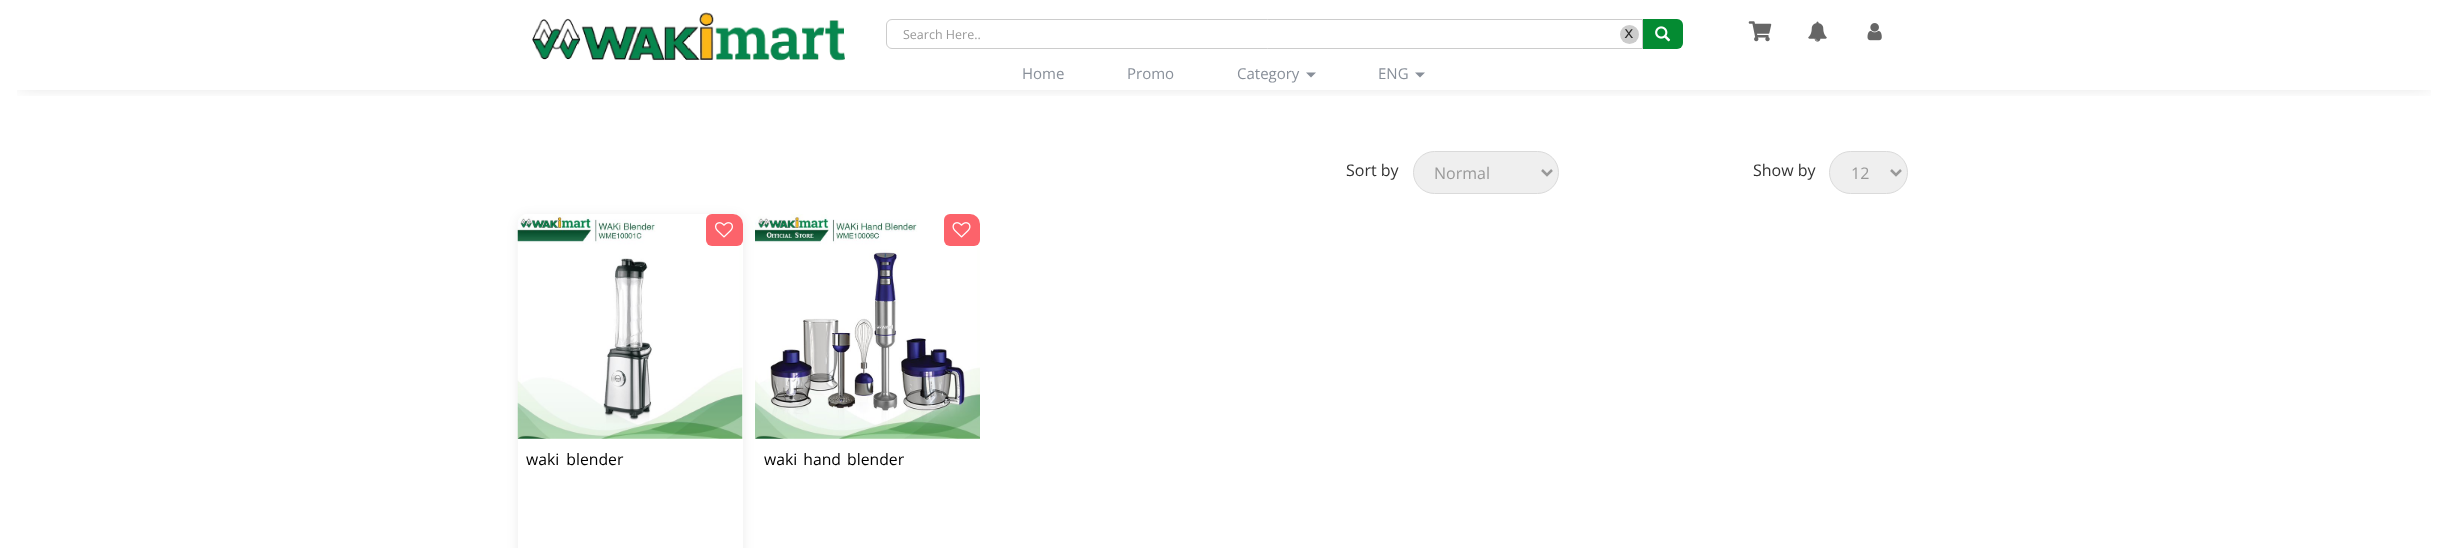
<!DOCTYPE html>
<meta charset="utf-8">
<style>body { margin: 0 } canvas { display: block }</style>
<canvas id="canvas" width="2447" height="548"></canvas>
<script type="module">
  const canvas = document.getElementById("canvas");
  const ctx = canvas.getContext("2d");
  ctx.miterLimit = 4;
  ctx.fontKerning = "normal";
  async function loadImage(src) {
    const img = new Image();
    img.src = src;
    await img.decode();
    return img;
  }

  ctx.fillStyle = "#ffffff";
  ctx.fillRect(0, 0, 2447, 548);
  ctx.save();
  ctx.beginPath();
  ctx.rect(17, 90, 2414, 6);
  ctx.clip();
  ctx.fillStyle = "rgba(0, 0, 0, 0.19)";
  ctx.filter = "blur(9.5px)";
  ctx.beginPath();
  ctx.rect(19, 31, 2410, 53);
  ctx.fill();
  ctx.filter = "none";
  ctx.restore();
  ctx.drawImage(await loadImage("img1.png"), 532, 12, 313, 49);
  ctx.beginPath();
  ctx.roundRect(886.5, 19.5, 756, 29, [5.5, 0, 0, 5.5]);
  ctx.strokeStyle = "#cccccc";
  ctx.stroke();
  ctx.font = "12.5px Open Sans";
  ctx.fillStyle = "#999999";
  ctx.fillText("Search Here..", 903, 39);
  ctx.fillStyle = "#cccccc";
  ctx.beginPath();
  ctx.arc(1629.5, 34.5, 9.5, 0, Math.PI * 2);
  ctx.fill();
  ctx.font = "16px DejaVu Sans Mono";
  ctx.fillStyle = "#2b2b2b";
  ctx.fillText("x", 1624, 38);
  ctx.fillStyle = "#048b32";
  ctx.beginPath();
  ctx.roundRect(1643, 19, 40, 30, [0, 6, 6, 0]);
  ctx.fill();
  ctx.drawImage(await loadImage("img2.png"), 1655, 26, 16, 16);
  ctx.drawImage(await loadImage("img3.png"), 1748, 21, 24, 21);
  ctx.drawImage(await loadImage("img4.png"), 1808, 21, 19, 21);
  ctx.drawImage(await loadImage("img5.png"), 1867, 23, 15, 18);
  ctx.font = "15px Open Sans";
  ctx.fillStyle = "#888f99";
  ctx.fillText("Home", 1022, 79);
  ctx.fillText("Promo", 1127, 79);
  ctx.fillText("Category", 1237, 79);
  ctx.beginPath();
  ctx.moveTo(1306, 72.5);
  ctx.lineTo(1316, 72.5);
  ctx.lineTo(1311, 77.5);
  ctx.closePath();
  ctx.fill();
  ctx.fillText("ENG", 1378, 79);
  ctx.beginPath();
  ctx.moveTo(1415, 72.5);
  ctx.lineTo(1425, 72.5);
  ctx.lineTo(1420, 77.5);
  ctx.closePath();
  ctx.fill();
  ctx.font = "16px Open Sans";
  ctx.fillStyle = "#333333";
  ctx.fillText("Sort by", 1346, 176);
  ctx.fillStyle = "#efefef";
  ctx.beginPath();
  ctx.roundRect(1413.5, 151.5, 145, 42, 21);
  ctx.fill();
  ctx.strokeStyle = "#dadada";
  ctx.stroke();
  ctx.beginPath();
  ctx.moveTo(1542, 170);
  ctx.lineTo(1547, 175);
  ctx.lineTo(1552, 170);
  ctx.strokeStyle = "#999999";
  ctx.lineWidth = 2.5;
  ctx.stroke();
  ctx.fillStyle = "#999999";
  ctx.fillText("Normal", 1434, 179);
  ctx.fillStyle = "#333333";
  ctx.fillText("Show by", 1753, 176);
  ctx.fillStyle = "#efefef";
  ctx.beginPath();
  ctx.roundRect(1829.5, 151.5, 78, 42, 21);
  ctx.fill();
  ctx.strokeStyle = "#dadada";
  ctx.lineWidth = 1;
  ctx.stroke();
  ctx.beginPath();
  ctx.moveTo(1891, 170);
  ctx.lineTo(1896, 175);
  ctx.lineTo(1901, 170);
  ctx.strokeStyle = "#999999";
  ctx.lineWidth = 2.5;
  ctx.stroke();
  ctx.fillStyle = "#999999";
  ctx.fillText("12", 1851, 179);
  ctx.fillStyle = "rgba(0, 0, 0, 0.08)";
  ctx.filter = "blur(6px)";
  ctx.beginPath();
  ctx.roundRect(518, 216, 225, 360, 10);
  ctx.fill();
  ctx.filter = "none";
  ctx.fillStyle = "#ffffff";
  ctx.beginPath();
  ctx.roundRect(518, 214, 225, 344, 10);
  ctx.fill();
  ctx.drawImage(await loadImage("img6.png"), 517, 214, 226, 225);
  ctx.fillStyle = "#fc636b";
  ctx.beginPath();
  ctx.roundRect(706, 214, 37, 32, [6, 10, 6, 6]);
  ctx.fill();
  ctx.drawImage(await loadImage("img7.png"), 715, 222, 18, 16);
  ctx.wordSpacing = "3px";
  ctx.font = "15.75px Open Sans";
  ctx.fillStyle = "#000000";
  ctx.fillText("waki blender", 526, 465);
  ctx.drawImage(await loadImage("img8.png"), 755, 214, 225, 225);
  ctx.fillStyle = "#fc636b";
  ctx.beginPath();
  ctx.roundRect(944, 214, 36, 32, [6, 10, 6, 6]);
  ctx.fill();
  ctx.drawImage(await loadImage("img9.png"), 952, 222, 19, 16);
  ctx.wordSpacing = "2px";
  ctx.fillStyle = "#000000";
  ctx.fillText("waki hand blender", 764, 465);
</script>
